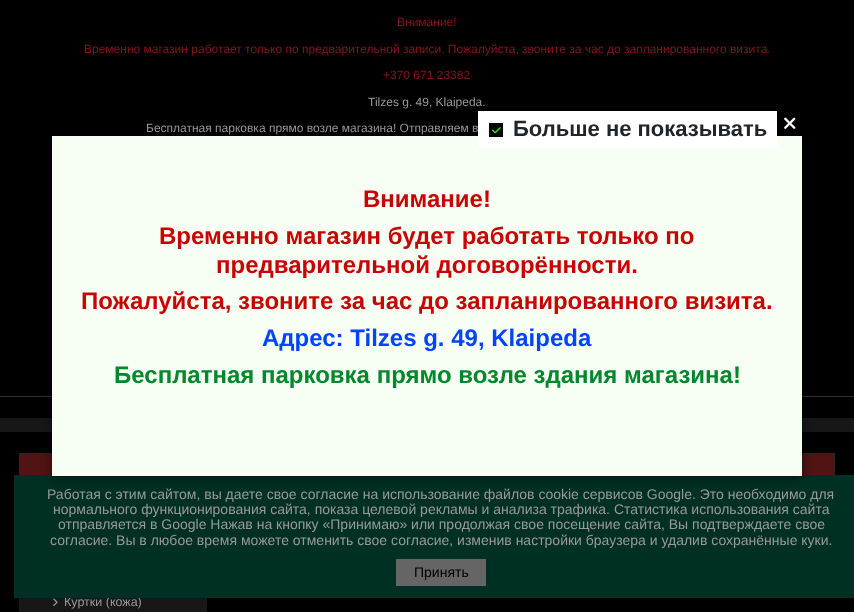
<!DOCTYPE html>
<meta charset="utf-8">
<style>body { margin: 0 } canvas { display: block }</style>
<canvas id="canvas" width="854" height="612"></canvas>
<script type="module">
  const canvas = document.getElementById("canvas");
  const ctx = canvas.getContext("2d");
  ctx.miterLimit = 4;
  ctx.fontKerning = "normal";
  async function loadImage(src) {
    const img = new Image();
    img.src = src;
    await img.decode();
    return img;
  }

  ctx.fillStyle = "#000000";
  ctx.fillRect(0, 0, 854, 612);
  ctx.font = "12px Liberation Sans";
  ctx.fillStyle = "#861717";
  ctx.fillText("Внимание!", 397, 26);
  ctx.fillText("Временно магазин работает только по предварительной записи. Пожалуйста, звоните за час до запланированного визита.", 84, 53);
  ctx.fillText("+370 671 23382", 383, 79);
  ctx.fillStyle = "#999999";
  ctx.fillText("Tilzes g. 49, Klaipeda.", 368, 106);
  ctx.fillText("Бесплатная парковка прямо возле магазина! Отправляем в", 146, 132);
  ctx.fillStyle = "#2f2f2f";
  ctx.fillRect(0, 396, 854, 1);
  ctx.fillStyle = "#501414";
  ctx.fillRect(20, 454, 814, 21);
  ctx.strokeStyle = "#262626";
  ctx.strokeRect(19.5, 453.5, 815, 48);
  ctx.fillStyle = "#171717";
  ctx.fillRect(19, 598, 188, 14);
  ctx.font = "12.5px Liberation Sans";
  ctx.fillStyle = "#999999";
  ctx.fillText("Куртки (кожа)", 64, 606);
  ctx.fillStyle = "#002f23";
  ctx.fillRect(14, 475, 840, 123);
  ctx.font = "14px Liberation Sans";
  ctx.fillStyle = "#999999";
  ctx.fillText("Работая с этим сайтом, вы даете свое согласие на использование файлов cookie сервисов Google. Это необходимо для", 47, 499);
  ctx.fillText("нормального функционирования сайта, показа целевой рекламы и анализа трафика. Статистика использования сайта", 53, 514);
  ctx.fillText("отправляется в Google Нажав на кнопку «Принимаю» или продолжая свое посещение сайта, Вы подтверждаете свое", 58, 529);
  ctx.fillText("согласие. Вы в любое время можете отменить свое согласие, изменив настройки браузера и удалив сохранённые куки.", 50, 545);
  ctx.fillStyle = "#656565";
  ctx.fillRect(396, 559, 90, 27);
  ctx.fillStyle = "#000000";
  ctx.fillText("Принять", 414, 577);
  ctx.fillStyle = "#171717";
  ctx.fillRect(0, 418, 854, 14);
  ctx.drawImage(await loadImage("img1.png"), 53, 598, 5, 8);
  ctx.fillStyle = "rgba(0, 0, 0, 0.5)";
  ctx.filter = "blur(5px)";
  ctx.beginPath();
  ctx.rect(52, 138, 750, 340);
  ctx.fill();
  ctx.filter = "none";
  ctx.fillStyle = "#f7fff4";
  ctx.fillRect(52, 136, 750, 340);
  ctx.fillStyle = "#ffffff";
  ctx.fillRect(478, 111, 299, 37);
  ctx.fillStyle = "#000000";
  ctx.fillRect(489, 123, 14, 14);
  ctx.drawImage(await loadImage("img2.png"), 492, 127, 9, 7);
  ctx.font = "bold 22px Liberation Sans";
  ctx.fillStyle = "#212529";
  ctx.fillText("Больше не показывать", 513, 136);
  ctx.drawImage(await loadImage("img3.png"), 784, 117, 12, 12);
  ctx.font = "bold 24px Liberation Sans";
  ctx.fillStyle = "#c80303";
  ctx.fillText("Внимание!", 363, 207);
  ctx.fillText("Временно магазин будет работать только по", 159, 244);
  ctx.fillText("предварительной договорённости.", 216, 273);
  ctx.fillText("Пожалуйста, звоните за час до запланированного визита.", 81, 309);
  ctx.fillStyle = "#0044ff";
  ctx.fillText("Адрес: Tilzes g. 49, Klaipeda", 262, 346);
  ctx.fillStyle = "#01872c";
  ctx.fillText("Бесплатная парковка прямо возле здания магазина!", 114, 383);
</script>
